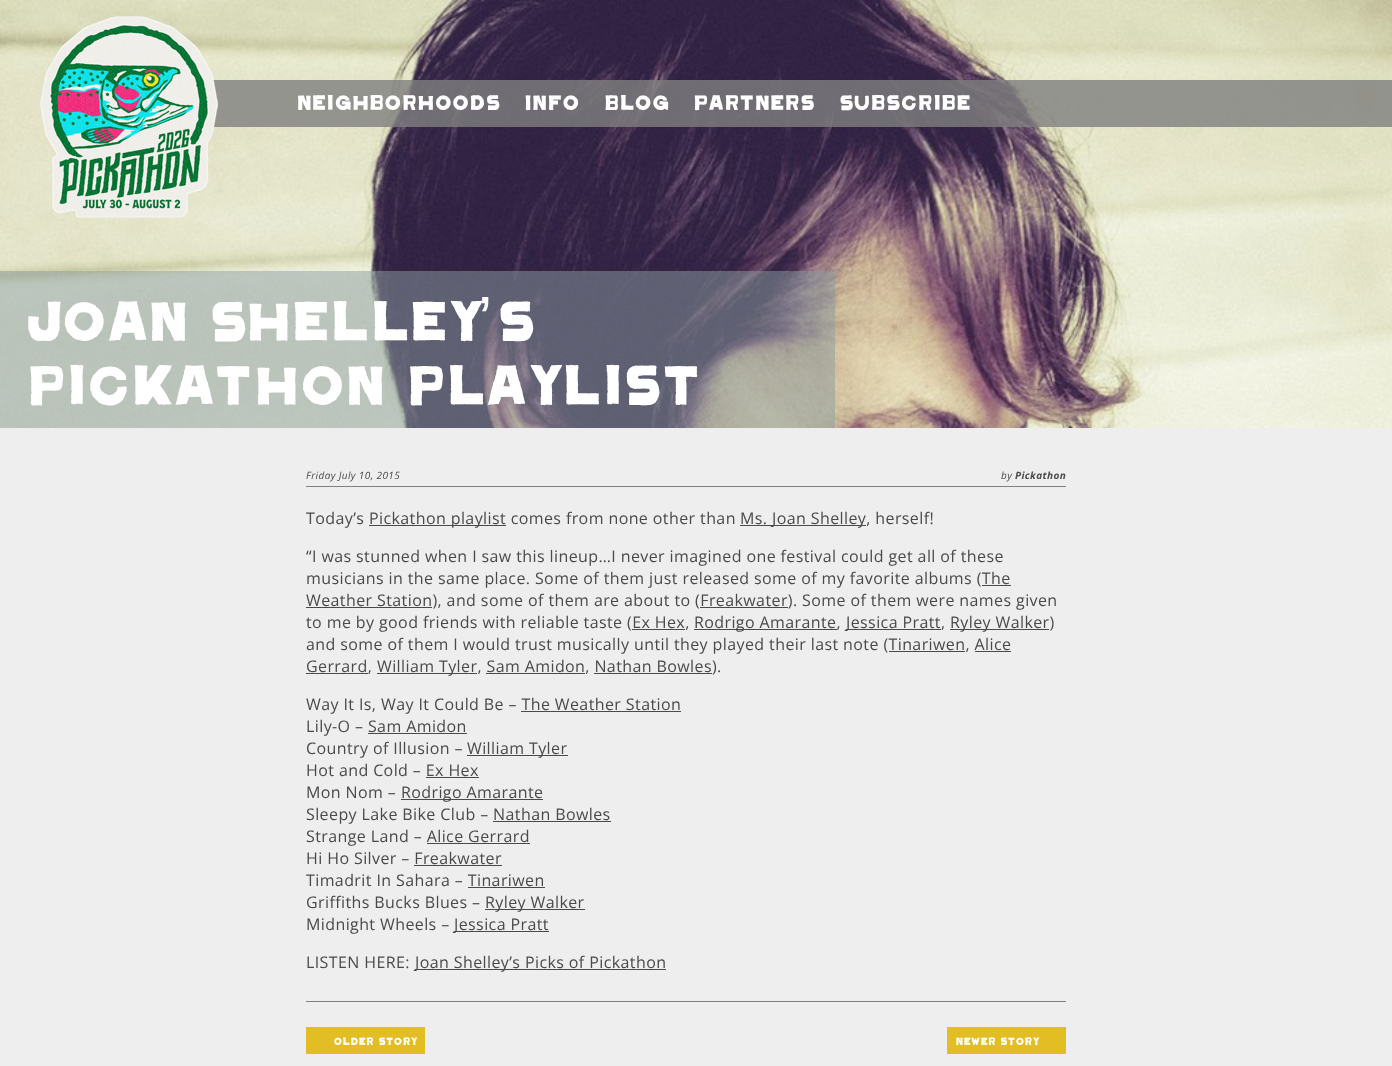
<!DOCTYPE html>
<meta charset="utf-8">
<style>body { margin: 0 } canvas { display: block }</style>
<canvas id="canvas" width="1392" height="1066"></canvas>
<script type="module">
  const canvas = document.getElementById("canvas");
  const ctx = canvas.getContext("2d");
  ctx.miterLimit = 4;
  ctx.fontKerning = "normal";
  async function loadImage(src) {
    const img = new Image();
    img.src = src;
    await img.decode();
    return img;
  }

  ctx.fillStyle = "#eeeeee";
  ctx.fillRect(0, 0, 1392, 1066);
  ctx.drawImage(await loadImage("img1.png"), 0, 0, 1392, 428);
  ctx.fillStyle = "rgba(128, 128, 128, 0.8)";
  ctx.fillRect(213, 80, 1179, 47);
  ctx.drawImage(await loadImage("img2.png"), 40, 16, 178, 202);
  ctx.letterSpacing = "0.4px";
  ctx.font = "24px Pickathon";
  ctx.fillStyle = "#ffffff";
  ctx.fillText("Neighborhoods", 295, 110);
  ctx.fillText("Info", 523, 110);
  ctx.fillText("Blog", 603, 110);
  ctx.fillText("Partners", 692, 110);
  ctx.fillText("Subscribe", 838, 110);
  ctx.fillStyle = "rgba(140, 157, 161, 0.5)";
  ctx.fillRect(0, 271, 835, 157);
  ctx.font = "64px Pickathon";
  ctx.fillStyle = "#ffffff";
  ctx.fillText("Joan Shelley", 23, 341);
  ctx.font = "64px Liberation Sans";
  ctx.fillText("’", 478, 341);
  ctx.font = "64px Pickathon";
  ctx.fillText("s", 493, 341);
  ctx.fillText("Pickathon Playlist", 23, 405);
  ctx.fillStyle = "#808080";
  ctx.fillRect(306, 486, 760, 1);
  ctx.font = "italic 10px Open Sans";
  ctx.fillStyle = "#4a4a4a";
  ctx.fillText("Friday July 10, 2015", 306, 479);
  ctx.fillText("by", 1001, 479);
  ctx.font = "italic bold 10px Open Sans";
  ctx.fillText("Pickathon", 1015, 479);
  ctx.font = "16px Open Sans";
  ctx.fillText("Today’s", 306, 524);
  ctx.fillRect(369, 525, 137, 1);
  ctx.fillText("Pickathon playlist comes from none other than", 369, 524);
  ctx.fillRect(740, 525, 126, 1);
  ctx.fillText("Ms. Joan Shelley, herself!", 740, 524);
  ctx.fillText("“I was stunned when I saw this lineup…I never imagined one festival could get all of these", 306, 562);
  ctx.fillText("musicians in the same place. Some of them just released some of my favorite albums (The", 306, 584);
  ctx.fillRect(306, 607, 126, 1);
  ctx.fillText("Weather Station), and some of them are about to (Freakwater). Some of them were names given", 306, 606);
  ctx.fillRect(982, 585, 29, 1);
  ctx.fillRect(700, 607, 88, 1);
  ctx.fillText("to me by good friends with reliable taste (Ex Hex,", 306, 628);
  ctx.fillRect(694, 629, 143, 1);
  ctx.fillText("Rodrigo Amarante,", 694, 628);
  ctx.fillRect(846, 629, 95, 1);
  ctx.fillText("Jessica Pratt,", 846, 628);
  ctx.fillRect(950, 629, 99, 1);
  ctx.fillText("Ryley Walker)", 950, 628);
  ctx.fillRect(632, 629, 53, 1);
  ctx.fillText("and some of them I would trust musically until they played their last note (Tinariwen, Alice", 306, 650);
  ctx.fillRect(889, 651, 76, 1);
  ctx.fillRect(306, 673, 62, 1);
  ctx.fillText("Gerrard,", 306, 672);
  ctx.fillRect(975, 651, 36, 1);
  ctx.fillRect(377, 673, 100, 1);
  ctx.fillText("William Tyler, Sam Amidon, Nathan Bowles).", 377, 672);
  ctx.fillRect(486, 673, 99, 1);
  ctx.fillRect(594, 673, 118, 1);
  ctx.fillText("Way It Is, Way It Could Be – The Weather Station", 306, 710);
  ctx.fillRect(521, 711, 160, 1);
  ctx.fillText("Lily-O – Sam Amidon", 306, 732);
  ctx.fillRect(368, 733, 99, 1);
  ctx.fillText("Country of Illusion –", 306, 754);
  ctx.fillRect(467, 755, 101, 1);
  ctx.fillText("William Tyler", 467, 754);
  ctx.fillText("Hot and Cold – Ex Hex", 306, 776);
  ctx.fillRect(426, 777, 53, 1);
  ctx.fillText("Mon Nom –", 306, 798);
  ctx.fillRect(401, 799, 142, 1);
  ctx.fillText("Rodrigo Amarante", 401, 798);
  ctx.fillText("Sleepy Lake Bike Club – Nathan Bowles", 306, 820);
  ctx.fillRect(493, 821, 118, 1);
  ctx.fillText("Strange Land – Alice Gerrard", 306, 842);
  ctx.fillRect(427, 843, 103, 1);
  ctx.fillText("Hi Ho Silver – Freakwater", 306, 864);
  ctx.fillRect(414, 865, 88, 1);
  ctx.fillText("Timadrit In Sahara – Tinariwen", 306, 886);
  ctx.fillRect(468, 887, 77, 1);
  ctx.fillText("Griffiths Bucks Blues –", 306, 908);
  ctx.fillRect(485, 909, 100, 1);
  ctx.fillText("Ryley Walker", 485, 908);
  ctx.fillText("Midnight Wheels –", 306, 930);
  ctx.fillRect(454, 931, 95, 1);
  ctx.fillText("Jessica Pratt", 454, 930);
  ctx.fillText("LISTEN HERE:", 306, 968);
  ctx.fillRect(415, 969, 251, 1);
  ctx.fillText("Joan Shelley’s Picks of Pickathon", 415, 968);
  ctx.fillStyle = "#808080";
  ctx.fillRect(306, 1001, 760, 1);
  ctx.fillStyle = "#e2bd23";
  ctx.fillRect(306, 1027, 119, 27);
  ctx.font = "12px Pickathon";
  ctx.fillStyle = "#ffffff";
  ctx.fillText("older story", 333, 1045);
  ctx.fillStyle = "#e2bd23";
  ctx.fillRect(947, 1027, 119, 27);
  ctx.fillStyle = "#ffffff";
  ctx.fillText("newer story", 955, 1045);
</script>
